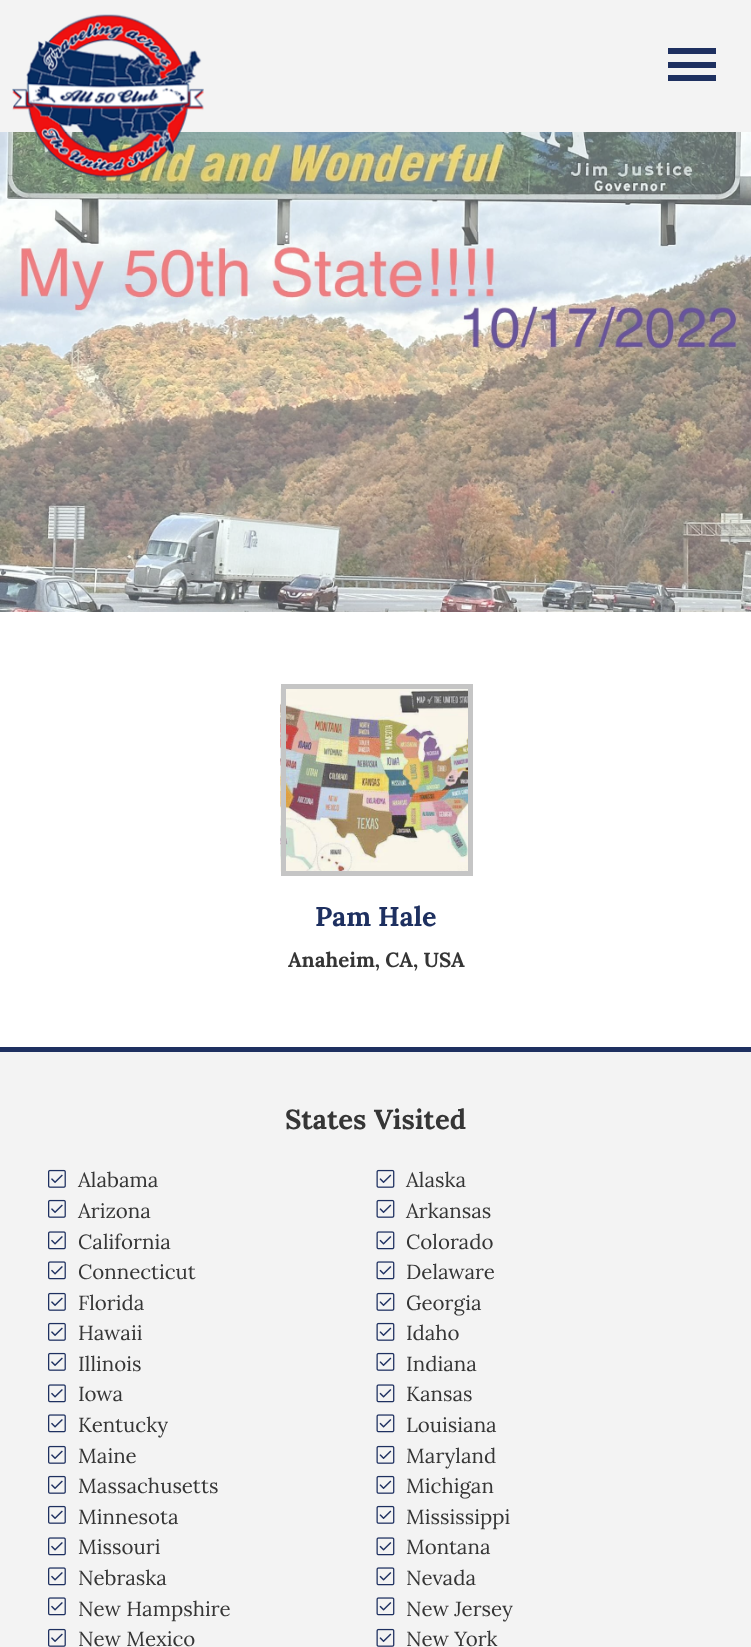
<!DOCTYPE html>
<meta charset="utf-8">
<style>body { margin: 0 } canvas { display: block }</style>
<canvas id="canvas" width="751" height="1647"></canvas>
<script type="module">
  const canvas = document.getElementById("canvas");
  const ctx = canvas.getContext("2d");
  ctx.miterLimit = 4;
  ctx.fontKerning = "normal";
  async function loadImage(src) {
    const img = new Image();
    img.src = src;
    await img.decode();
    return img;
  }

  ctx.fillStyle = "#ffffff";
  ctx.fillRect(0, 0, 751, 1647);
  ctx.fillStyle = "#f3f3f3";
  ctx.fillRect(0, 0, 751, 132);
  ctx.drawImage(await loadImage("img2.png"), 0, 132, 751, 480);
  ctx.drawImage(await loadImage("img1.png"), 12, 14, 192, 164);
  ctx.fillStyle = "#1e3060";
  ctx.fillRect(668, 48, 48, 6);
  ctx.fillRect(668, 62, 48, 6);
  ctx.fillRect(668, 75, 48, 6);
  ctx.drawImage(await loadImage("img3.png"), 280, 688, 188, 184);
  ctx.strokeStyle = "#c5c5c5";
  ctx.lineWidth = 5;
  ctx.strokeRect(283.5, 686.5, 187, 187);
  ctx.font = "bold 27px Lora";
  ctx.fillText("Pam Hale", 315, 926);
  ctx.font = "bold 20.5px Lora";
  ctx.fillStyle = "#353535";
  ctx.fillText("Anaheim, CA, USA", 288, 967);
  ctx.fillStyle = "#f3f3f3";
  ctx.fillRect(0, 1052, 751, 595);
  ctx.fillStyle = "#1e3060";
  ctx.fillRect(0, 1047, 751, 5);
  ctx.font = "bold 27.5px Lora";
  ctx.fillStyle = "#353535";
  ctx.fillText("States Visited", 285, 1129);
  ctx.drawImage(await loadImage("img4.png"), 48, 1169, 18, 19);
  ctx.font = "20.5px Lora";
  ctx.fillText("Alabama", 78, 1187);
  ctx.drawImage(await loadImage("img5.png"), 376, 1169, 19, 19);
  ctx.fillText("Alaska", 406, 1187);
  ctx.drawImage(await loadImage("img4.png"), 48, 1199, 18, 19);
  ctx.fillText("Arizona", 78, 1218);
  ctx.drawImage(await loadImage("img5.png"), 376, 1199, 19, 19);
  ctx.fillText("Arkansas", 406, 1218);
  ctx.drawImage(await loadImage("img6.png"), 48, 1231, 18, 19);
  ctx.fillText("California", 78, 1249);
  ctx.drawImage(await loadImage("img7.png"), 376, 1231, 19, 19);
  ctx.fillText("Colorado", 406, 1249);
  ctx.drawImage(await loadImage("img6.png"), 48, 1261, 18, 19);
  ctx.fillText("Connecticut", 78, 1279);
  ctx.drawImage(await loadImage("img7.png"), 376, 1261, 19, 19);
  ctx.fillText("Delaware", 406, 1279);
  ctx.drawImage(await loadImage("img4.png"), 48, 1292, 18, 19);
  ctx.fillText("Florida", 78, 1310);
  ctx.drawImage(await loadImage("img5.png"), 376, 1292, 19, 19);
  ctx.fillText("Georgia", 406, 1310);
  ctx.drawImage(await loadImage("img4.png"), 48, 1322, 18, 19);
  ctx.fillText("Hawaii", 78, 1340);
  ctx.drawImage(await loadImage("img5.png"), 376, 1322, 19, 19);
  ctx.fillText("Idaho", 406, 1340);
  ctx.drawImage(await loadImage("img4.png"), 48, 1352, 18, 19);
  ctx.fillText("Illinois", 78, 1371);
  ctx.drawImage(await loadImage("img5.png"), 376, 1352, 19, 19);
  ctx.fillText("Indiana", 406, 1371);
  ctx.drawImage(await loadImage("img6.png"), 48, 1384, 18, 19);
  ctx.fillText("Iowa", 78, 1401);
  ctx.drawImage(await loadImage("img7.png"), 376, 1384, 19, 19);
  ctx.fillText("Kansas", 406, 1401);
  ctx.drawImage(await loadImage("img6.png"), 48, 1414, 18, 19);
  ctx.fillText("Kentucky", 78, 1432);
  ctx.drawImage(await loadImage("img7.png"), 376, 1414, 19, 19);
  ctx.fillText("Louisiana", 406, 1432);
  ctx.drawImage(await loadImage("img4.png"), 48, 1445, 18, 19);
  ctx.fillText("Maine", 78, 1463);
  ctx.drawImage(await loadImage("img5.png"), 376, 1445, 19, 19);
  ctx.fillText("Maryland", 406, 1463);
  ctx.drawImage(await loadImage("img4.png"), 48, 1475, 18, 19);
  ctx.fillText("Massachusetts", 78, 1493);
  ctx.drawImage(await loadImage("img5.png"), 376, 1475, 19, 19);
  ctx.fillText("Michigan", 406, 1493);
  ctx.drawImage(await loadImage("img4.png"), 48, 1505, 18, 19);
  ctx.fillText("Minnesota", 78, 1524);
  ctx.drawImage(await loadImage("img5.png"), 376, 1505, 19, 19);
  ctx.fillText("Mississippi", 406, 1524);
  ctx.drawImage(await loadImage("img6.png"), 48, 1537, 18, 19);
  ctx.fillText("Missouri", 78, 1554);
  ctx.drawImage(await loadImage("img7.png"), 376, 1537, 19, 19);
  ctx.fillText("Montana", 406, 1554);
  ctx.drawImage(await loadImage("img6.png"), 48, 1567, 18, 19);
  ctx.fillText("Nebraska", 78, 1585);
  ctx.drawImage(await loadImage("img7.png"), 376, 1567, 19, 19);
  ctx.fillText("Nevada", 406, 1585);
  ctx.drawImage(await loadImage("img6.png"), 48, 1597, 18, 19);
  ctx.fillText("New Hampshire", 78, 1616);
  ctx.drawImage(await loadImage("img7.png"), 376, 1597, 19, 19);
  ctx.fillText("New Jersey", 406, 1616);
  ctx.drawImage(await loadImage("img4.png"), 48, 1628, 18, 19);
  ctx.fillText("New Mexico", 78, 1646);
  ctx.drawImage(await loadImage("img5.png"), 376, 1628, 19, 19);
  ctx.fillText("New York", 406, 1646);
</script>
